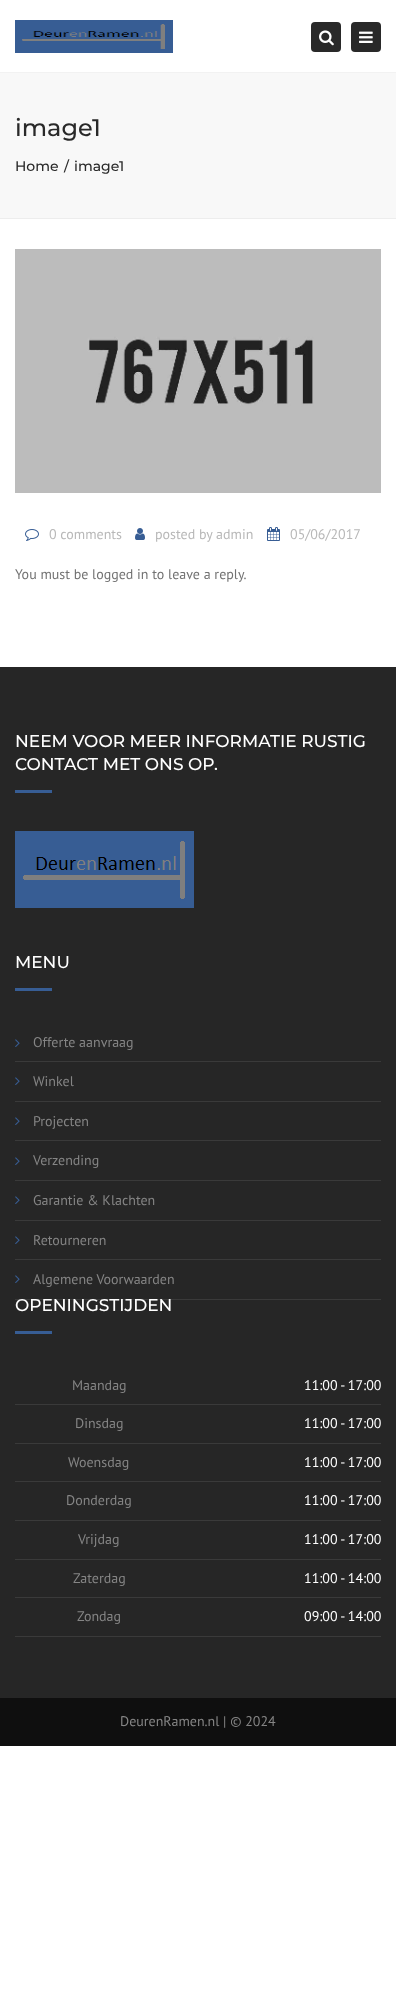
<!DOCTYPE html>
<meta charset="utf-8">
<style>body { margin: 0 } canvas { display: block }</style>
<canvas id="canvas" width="396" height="2002"></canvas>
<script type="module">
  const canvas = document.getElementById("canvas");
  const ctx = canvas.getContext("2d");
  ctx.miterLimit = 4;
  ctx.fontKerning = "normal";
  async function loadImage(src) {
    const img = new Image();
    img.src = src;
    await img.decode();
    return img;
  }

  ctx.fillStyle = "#ffffff";
  ctx.fillRect(0, 0, 396, 2002);
  ctx.drawImage(await loadImage("img1.png"), 15, 20, 158, 33);
  ctx.fillStyle = "#f2f2f2";
  ctx.fillRect(0, 72, 396, 1);
  ctx.fillStyle = "#292929";
  ctx.beginPath();
  ctx.roundRect(311, 22, 30, 30, 4);
  ctx.fill();
  ctx.drawImage(await loadImage("img2.png"), 319, 30, 15, 16);
  ctx.beginPath();
  ctx.roundRect(351, 22, 30, 30, 4);
  ctx.fill();
  ctx.drawImage(await loadImage("img3.png"), 359, 31, 14, 12);
  ctx.fillStyle = "#f8f8f8";
  ctx.fillRect(0, 73, 396, 145);
  ctx.fillStyle = "#ededed";
  ctx.fillRect(0, 218, 396, 1);
  ctx.font = "500 24px Montserrat";
  ctx.fillStyle = "#292929";
  ctx.fillText("image1", 15, 136);
  ctx.font = "500 14px Montserrat";
  ctx.fillText("Home", 15, 171);
  ctx.fillText("/", 64, 171);
  ctx.fillText("image1", 74, 171);
  ctx.drawImage(await loadImage("img4.png"), 15, 249, 366, 244);
  ctx.drawImage(await loadImage("img5.png"), 25, 529, 14, 12);
  ctx.font = "14px PT Sans";
  ctx.fillStyle = "#b8b8b8";
  ctx.fillText("0 comments", 49, 539);
  ctx.drawImage(await loadImage("img6.png"), 135, 528, 10, 12);
  ctx.fillText("posted by admin", 155, 539);
  ctx.drawImage(await loadImage("img7.png"), 267, 527, 13, 14);
  ctx.fillText("05/06/2017", 290, 539);
  ctx.fillStyle = "#727272";
  ctx.fillText("You must be logged in to leave a reply.", 15, 579);
  ctx.fillStyle = "#262626";
  ctx.fillRect(0, 667, 396, 1031);
  ctx.font = "500 17px Montserrat";
  ctx.fillStyle = "#ffffff";
  ctx.fillText("NEEM VOOR MEER INFORMATIE RUSTIG", 15, 747);
  ctx.fillText("CONTACT MET ONS OP.", 15, 770);
  ctx.fillStyle = "#375d94";
  ctx.fillRect(15, 790, 37, 3);
  ctx.drawImage(await loadImage("img8.png"), 15, 831, 179, 77);
  ctx.fillStyle = "#ffffff";
  ctx.fillText("MENU", 15, 968);
  ctx.fillStyle = "#375d94";
  ctx.fillRect(15, 988, 37, 3);
  ctx.fillStyle = "#3a3a3a";
  ctx.fillRect(15, 1061, 366, 1);
  ctx.drawImage(await loadImage("img9.png"), 15, 1039, 5, 8);
  ctx.font = "14px PT Sans";
  ctx.fillStyle = "#858585";
  ctx.fillText("Offerte aanvraag", 33, 1047);
  ctx.fillStyle = "#3a3a3a";
  ctx.fillRect(15, 1101, 366, 1);
  ctx.drawImage(await loadImage("img9.png"), 15, 1077, 5, 8);
  ctx.fillStyle = "#858585";
  ctx.fillText("Winkel", 33, 1086);
  ctx.fillStyle = "#3a3a3a";
  ctx.fillRect(15, 1140, 366, 1);
  ctx.drawImage(await loadImage("img9.png"), 15, 1117, 5, 8);
  ctx.fillStyle = "#858585";
  ctx.fillText("Projecten", 33, 1126);
  ctx.fillStyle = "#3a3a3a";
  ctx.fillRect(15, 1180, 366, 1);
  ctx.drawImage(await loadImage("img9.png"), 15, 1157, 5, 8);
  ctx.fillStyle = "#858585";
  ctx.fillText("Verzending", 33, 1165);
  ctx.fillStyle = "#3a3a3a";
  ctx.fillRect(15, 1220, 366, 1);
  ctx.drawImage(await loadImage("img9.png"), 15, 1196, 5, 8);
  ctx.fillStyle = "#858585";
  ctx.fillText("Garantie & Klachten", 33, 1205);
  ctx.fillStyle = "#3a3a3a";
  ctx.fillRect(15, 1259, 366, 1);
  ctx.drawImage(await loadImage("img9.png"), 15, 1236, 5, 8);
  ctx.fillStyle = "#858585";
  ctx.fillText("Retourneren", 33, 1245);
  ctx.fillStyle = "#3a3a3a";
  ctx.fillRect(15, 1299, 366, 1);
  ctx.drawImage(await loadImage("img9.png"), 15, 1275, 5, 8);
  ctx.fillStyle = "#858585";
  ctx.fillText("Algemene Voorwaarden", 33, 1284);
  ctx.font = "500 17px Montserrat";
  ctx.fillStyle = "#ffffff";
  ctx.fillText("OPENINGSTIJDEN", 15, 1311);
  ctx.fillStyle = "#375d94";
  ctx.fillRect(15, 1331, 37, 3);
  ctx.font = "14px PT Sans";
  ctx.fillStyle = "#858585";
  ctx.fillText("Maandag", 72, 1390);
  ctx.fillStyle = "#3a3a3a";
  ctx.fillRect(15, 1404, 366, 1);
  ctx.fillStyle = "#ffffff";
  ctx.fillText("11:00 - 17:00", 304, 1390);
  ctx.fillStyle = "#858585";
  ctx.fillText("Dinsdag", 75, 1428);
  ctx.fillStyle = "#3a3a3a";
  ctx.fillRect(15, 1443, 366, 1);
  ctx.fillStyle = "#ffffff";
  ctx.fillText("11:00 - 17:00", 304, 1428);
  ctx.fillStyle = "#858585";
  ctx.fillText("Woensdag", 68, 1467);
  ctx.fillStyle = "#3a3a3a";
  ctx.fillRect(15, 1481, 366, 1);
  ctx.fillStyle = "#ffffff";
  ctx.fillText("11:00 - 17:00", 304, 1467);
  ctx.fillStyle = "#858585";
  ctx.fillText("Donderdag", 66, 1505);
  ctx.fillStyle = "#3a3a3a";
  ctx.fillRect(15, 1520, 366, 1);
  ctx.fillStyle = "#ffffff";
  ctx.fillText("11:00 - 17:00", 304, 1505);
  ctx.fillStyle = "#858585";
  ctx.fillText("Vrijdag", 78, 1544);
  ctx.fillStyle = "#3a3a3a";
  ctx.fillRect(15, 1559, 366, 1);
  ctx.fillStyle = "#ffffff";
  ctx.fillText("11:00 - 17:00", 304, 1544);
  ctx.fillStyle = "#858585";
  ctx.fillText("Zaterdag", 73, 1583);
  ctx.fillStyle = "#3a3a3a";
  ctx.fillRect(15, 1597, 366, 1);
  ctx.fillStyle = "#ffffff";
  ctx.fillText("11:00 - 14:00", 304, 1583);
  ctx.fillStyle = "#858585";
  ctx.fillText("Zondag", 77, 1621);
  ctx.fillStyle = "#3a3a3a";
  ctx.fillRect(15, 1636, 366, 1);
  ctx.fillStyle = "#ffffff";
  ctx.fillText("09:00 - 14:00", 304, 1621);
  ctx.fillStyle = "#0f0f0f";
  ctx.fillRect(0, 1698, 396, 48);
  ctx.fillStyle = "#858585";
  ctx.fillText("DeurenRamen.nl | © 2024", 120, 1726);
</script>
